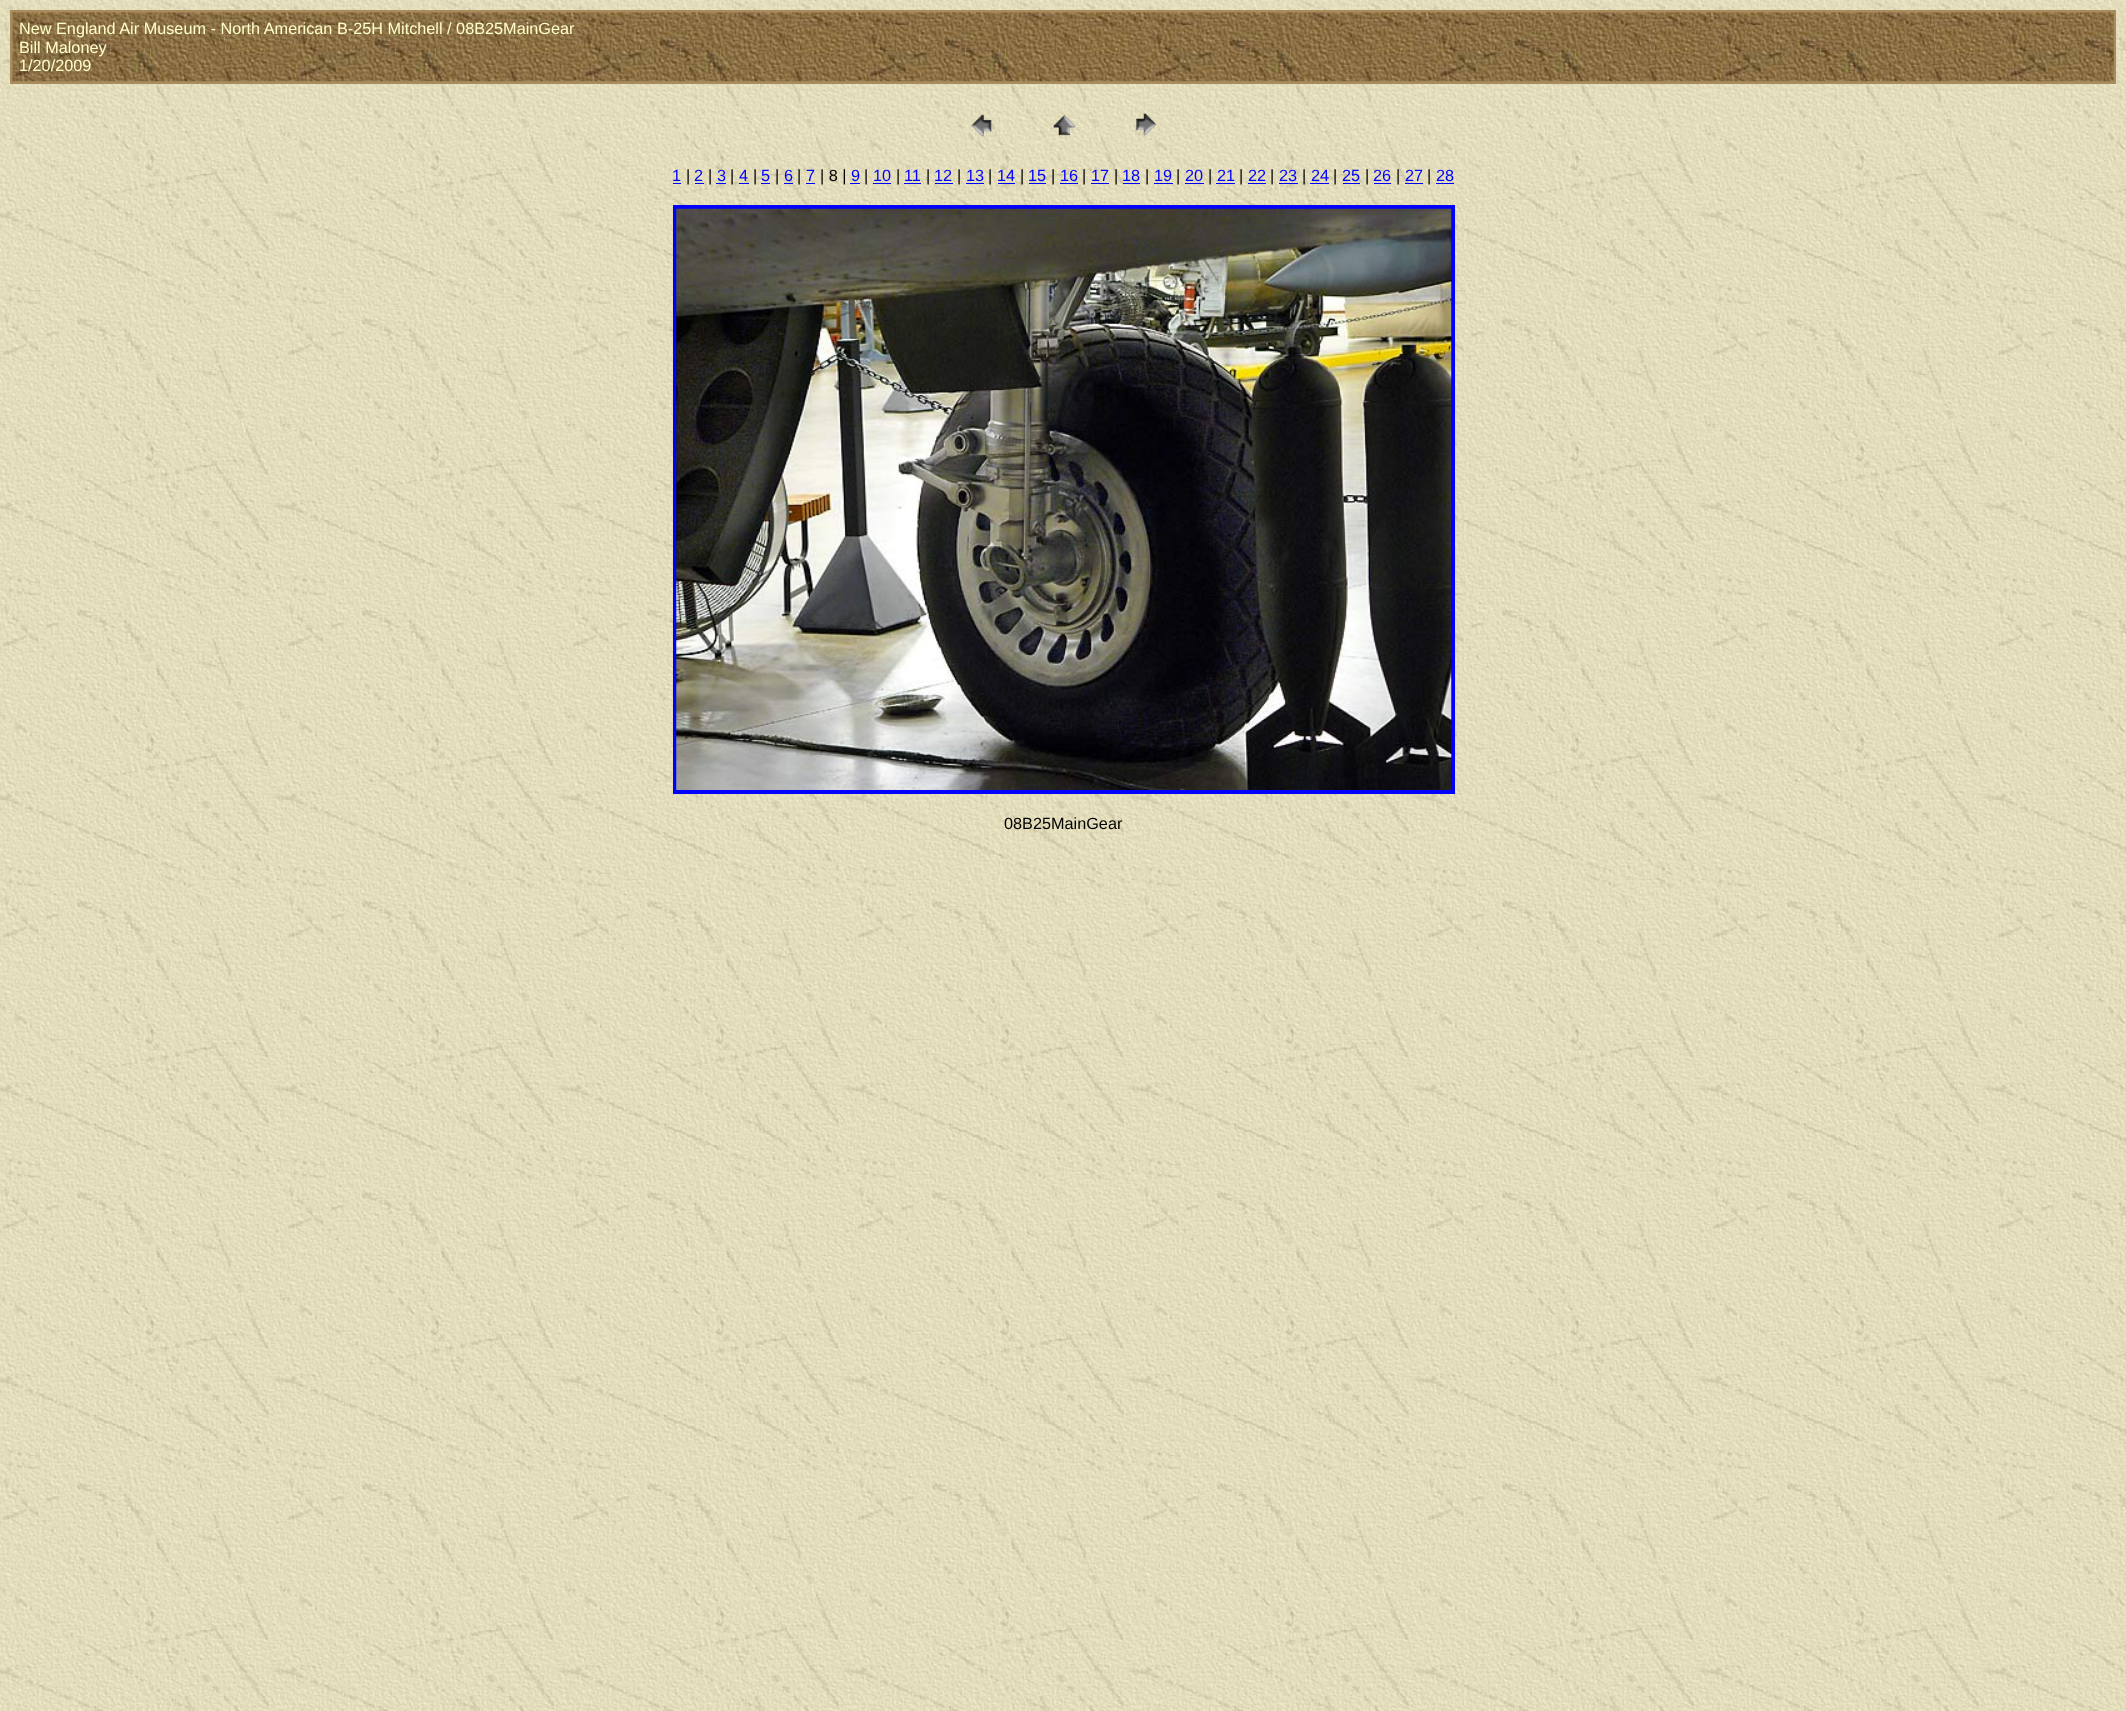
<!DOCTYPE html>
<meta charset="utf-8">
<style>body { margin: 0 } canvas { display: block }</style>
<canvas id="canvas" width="2126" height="1711"></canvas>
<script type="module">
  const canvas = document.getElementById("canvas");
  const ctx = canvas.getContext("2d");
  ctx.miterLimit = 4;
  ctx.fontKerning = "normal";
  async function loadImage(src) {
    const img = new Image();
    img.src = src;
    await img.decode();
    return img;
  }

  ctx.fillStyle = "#ffffff";
  ctx.fillRect(0, 0, 2126, 1711);
  ctx.drawImage(await loadImage("img1.png"), 0, 0, 2126, 1711);
  ctx.fillStyle = "#a98c5d";
  ctx.fillRect(10, 10, 2106, 74);
  ctx.drawImage(await loadImage("img2.png"), 12, 12, 2102, 70);
  ctx.font = "16.25px Liberation Sans";
  ctx.fillStyle = "#ffffcc";
  ctx.fillText("New England Air Museum - North American B-25H Mitchell / 08B25MainGear", 19, 34);
  ctx.fillText("Bill Maloney", 19, 53);
  ctx.fillText("1/20/2009", 19, 71);
  ctx.drawImage(await loadImage("img3.png"), 971, 114, 21, 23);
  ctx.drawImage(await loadImage("img4.png"), 1053, 114, 23, 22);
  ctx.drawImage(await loadImage("img5.png"), 1136, 113, 21, 23);
  ctx.fillStyle = "#0000ff";
  ctx.fillText("1", 672, 181);
  ctx.fillRect(673, 183, 8, 1);
  ctx.fillStyle = "#000000";
  ctx.fillText("|", 686, 181);
  ctx.fillStyle = "#0000ff";
  ctx.fillText("2", 694, 181);
  ctx.fillRect(695, 183, 9, 1);
  ctx.fillStyle = "#000000";
  ctx.fillText("|", 708, 181);
  ctx.fillStyle = "#0000ff";
  ctx.fillText("3", 717, 181);
  ctx.fillRect(716, 183, 10, 1);
  ctx.fillStyle = "#000000";
  ctx.fillText("|", 730, 181);
  ctx.fillStyle = "#0000ff";
  ctx.fillText("4", 739, 181);
  ctx.fillRect(739, 183, 10, 1);
  ctx.fillStyle = "#000000";
  ctx.fillText("|", 753, 181);
  ctx.fillStyle = "#0000ff";
  ctx.fillText("5", 761, 181);
  ctx.fillRect(761, 183, 9, 1);
  ctx.fillStyle = "#000000";
  ctx.fillText("|", 775, 181);
  ctx.fillStyle = "#0000ff";
  ctx.fillText("6", 784, 181);
  ctx.fillRect(784, 183, 9, 1);
  ctx.fillStyle = "#000000";
  ctx.fillText("|", 797, 181);
  ctx.fillStyle = "#0000ff";
  ctx.fillText("7", 806, 181);
  ctx.fillRect(806, 183, 9, 1);
  ctx.fillStyle = "#000000";
  ctx.fillText("| 8 |", 820, 181);
  ctx.fillStyle = "#0000ff";
  ctx.fillText("9", 851, 181);
  ctx.fillRect(850, 183, 10, 1);
  ctx.fillStyle = "#000000";
  ctx.fillText("|", 864, 181);
  ctx.fillStyle = "#0000ff";
  ctx.fillText("10", 873, 181);
  ctx.fillRect(873, 183, 18, 1);
  ctx.fillStyle = "#000000";
  ctx.fillText("|", 896, 181);
  ctx.fillStyle = "#0000ff";
  ctx.fillText("11", 904, 181);
  ctx.fillRect(904, 183, 17, 1);
  ctx.fillStyle = "#000000";
  ctx.fillText("|", 926, 181);
  ctx.fillStyle = "#0000ff";
  ctx.fillText("12", 934, 181);
  ctx.fillRect(935, 183, 18, 1);
  ctx.fillStyle = "#000000";
  ctx.fillText("|", 957, 181);
  ctx.fillStyle = "#0000ff";
  ctx.fillText("13", 966, 181);
  ctx.fillRect(966, 183, 18, 1);
  ctx.fillStyle = "#000000";
  ctx.fillText("|", 988, 181);
  ctx.fillStyle = "#0000ff";
  ctx.fillText("14", 997, 181);
  ctx.fillRect(998, 183, 17, 1);
  ctx.fillStyle = "#000000";
  ctx.fillText("|", 1020, 181);
  ctx.fillStyle = "#0000ff";
  ctx.fillText("15", 1028, 181);
  ctx.fillRect(1029, 183, 17, 1);
  ctx.fillStyle = "#000000";
  ctx.fillText("|", 1051, 181);
  ctx.fillStyle = "#0000ff";
  ctx.fillText("16", 1060, 181);
  ctx.fillRect(1060, 183, 18, 1);
  ctx.fillStyle = "#000000";
  ctx.fillText("|", 1082, 181);
  ctx.fillStyle = "#0000ff";
  ctx.fillText("17", 1091, 181);
  ctx.fillRect(1091, 183, 18, 1);
  ctx.fillStyle = "#000000";
  ctx.fillText("|", 1114, 181);
  ctx.fillStyle = "#0000ff";
  ctx.fillText("18", 1122, 181);
  ctx.fillRect(1123, 183, 17, 1);
  ctx.fillStyle = "#000000";
  ctx.fillText("|", 1145, 181);
  ctx.fillStyle = "#0000ff";
  ctx.fillText("19", 1154, 181);
  ctx.fillRect(1154, 183, 19, 1);
  ctx.fillStyle = "#000000";
  ctx.fillText("|", 1176, 181);
  ctx.fillStyle = "#0000ff";
  ctx.fillText("20", 1185, 181);
  ctx.fillRect(1185, 183, 19, 1);
  ctx.fillStyle = "#000000";
  ctx.fillText("|", 1208, 181);
  ctx.fillStyle = "#0000ff";
  ctx.fillText("21", 1217, 181);
  ctx.fillRect(1216, 183, 19, 1);
  ctx.fillStyle = "#000000";
  ctx.fillText("|", 1239, 181);
  ctx.fillStyle = "#0000ff";
  ctx.fillText("22", 1248, 181);
  ctx.fillRect(1248, 183, 18, 1);
  ctx.fillStyle = "#000000";
  ctx.fillText("|", 1270, 181);
  ctx.fillStyle = "#0000ff";
  ctx.fillText("23", 1279, 181);
  ctx.fillRect(1279, 183, 19, 1);
  ctx.fillStyle = "#000000";
  ctx.fillText("|", 1302, 181);
  ctx.fillStyle = "#0000ff";
  ctx.fillText("24", 1311, 181);
  ctx.fillRect(1310, 183, 19, 1);
  ctx.fillStyle = "#000000";
  ctx.fillText("|", 1333, 181);
  ctx.fillStyle = "#0000ff";
  ctx.fillText("25", 1342, 181);
  ctx.fillRect(1343, 183, 17, 1);
  ctx.fillStyle = "#000000";
  ctx.fillText("|", 1365, 181);
  ctx.fillStyle = "#0000ff";
  ctx.fillText("26", 1373, 181);
  ctx.fillRect(1374, 183, 17, 1);
  ctx.fillStyle = "#000000";
  ctx.fillText("|", 1396, 181);
  ctx.fillStyle = "#0000ff";
  ctx.fillText("27", 1405, 181);
  ctx.fillRect(1405, 183, 18, 1);
  ctx.fillStyle = "#000000";
  ctx.fillText("|", 1427, 181);
  ctx.fillStyle = "#0000ff";
  ctx.fillText("28", 1436, 181);
  ctx.fillRect(1436, 183, 18, 1);
  ctx.strokeStyle = "#0000ff";
  ctx.lineWidth = 4;
  ctx.strokeRect(675, 207, 778, 585);
  ctx.drawImage(await loadImage("img6.png"), 676, 208, 776, 582);
  ctx.fillStyle = "#000000";
  ctx.fillText("08B25MainGear", 1004, 829);
</script>
